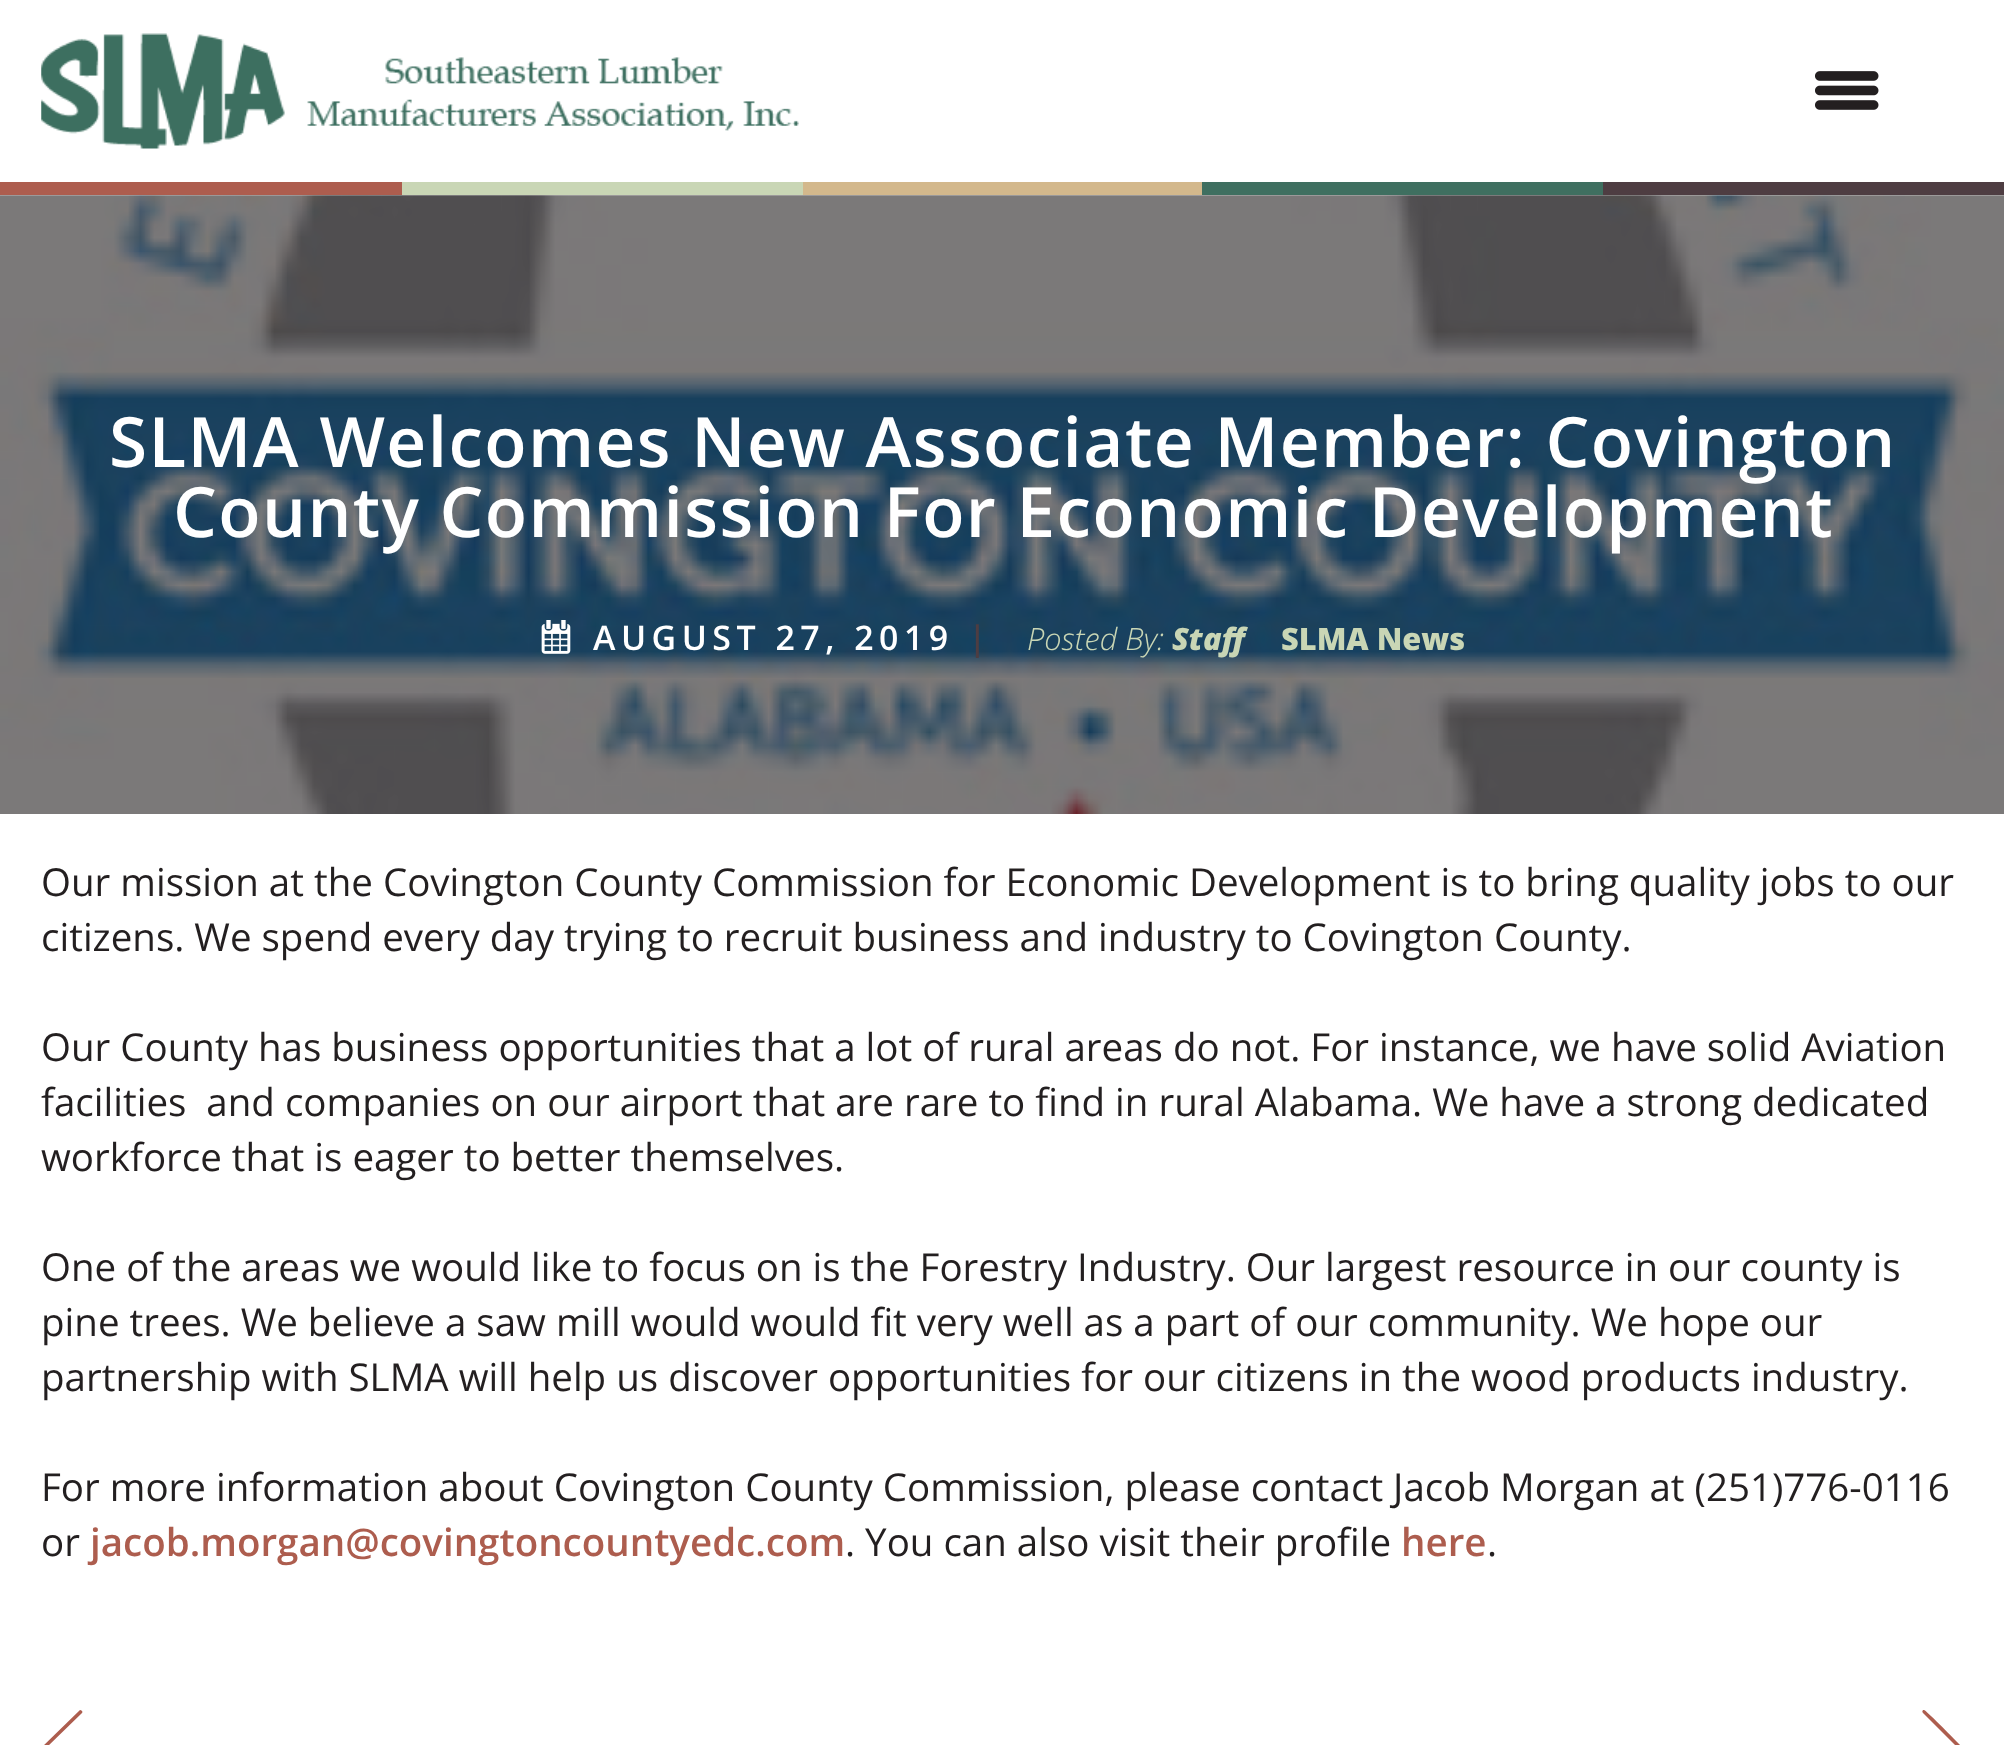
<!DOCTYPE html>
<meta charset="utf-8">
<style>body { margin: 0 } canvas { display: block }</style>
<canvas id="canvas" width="2004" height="1745"></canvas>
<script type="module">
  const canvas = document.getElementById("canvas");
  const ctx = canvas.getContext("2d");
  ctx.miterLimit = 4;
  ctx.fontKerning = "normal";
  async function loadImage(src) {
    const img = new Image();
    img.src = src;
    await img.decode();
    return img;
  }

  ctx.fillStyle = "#ffffff";
  ctx.fillRect(0, 0, 2004, 1745);
  ctx.drawImage(await loadImage("img1.png"), 41, 33, 758, 116);
  ctx.drawImage(await loadImage("img2.png"), 1815, 71, 64, 39);
  ctx.fillStyle = "#ad5d4e";
  ctx.fillRect(0, 182, 402, 13);
  ctx.fillStyle = "#c9d6b5";
  ctx.fillRect(402, 182, 401, 13);
  ctx.fillStyle = "#d3b88c";
  ctx.fillRect(803, 182, 399, 13);
  ctx.fillStyle = "#3f6f60";
  ctx.fillRect(1202, 182, 401, 13);
  ctx.fillStyle = "#4e3d42";
  ctx.fillRect(1603, 182, 401, 13);
  ctx.drawImage(await loadImage("img3.png"), 0, 195, 2004, 619);
  ctx.letterSpacing = "1.4px";
  ctx.font = "600 69.3px Open Sans";
  ctx.fillStyle = "#ffffff";
  ctx.fillText("SLMA Welcomes New Associate Member: Covington", 109, 467);
  ctx.fillText("County Commission For Economic Development", 173, 537);
  ctx.drawImage(await loadImage("img4.png"), 541, 620, 30, 34);
  ctx.letterSpacing = "5.5px";
  ctx.font = "600 33.9px Open Sans";
  ctx.fillText("AUGUST 27, 2019", 593, 650);
  ctx.fillStyle = "#4e3d42";
  ctx.fillText("|", 968, 650);
  ctx.letterSpacing = "0px";
  ctx.font = "italic 300 30.75px Open Sans";
  ctx.fillStyle = "#c9d6b5";
  ctx.fillText("Posted By:", 1027, 650);
  ctx.font = "italic 800 30.75px Open Sans";
  ctx.fillText("Staff", 1172, 650);
  ctx.font = "800 30.75px Open Sans";
  ctx.fillText("SLMA News", 1281, 650);
  ctx.font = "38.5px Open Sans";
  ctx.fillStyle = "#231f20";
  ctx.fillText("Our mission at the Covington County Commission for Economic Development is to bring quality jobs to our", 41, 896);
  ctx.fillText("citizens. We spend every day trying to recruit business and industry to Covington County.", 41, 951);
  ctx.fillText("Our County has business opportunities that a lot of rural areas do not. For instance, we have solid Aviation", 41, 1061);
  ctx.fillText("facilities  and companies on our airport that are rare to find in rural Alabama. We have a strong dedicated", 41, 1116);
  ctx.fillText("workforce that is eager to better themselves.", 41, 1171);
  ctx.fillText("One of the areas we would like to focus on is the Forestry Industry. Our largest resource in our county is", 41, 1281);
  ctx.fillText("pine trees. We believe a saw mill would would fit very well as a part of our community. We hope our", 41, 1336);
  ctx.fillText("partnership with SLMA will help us discover opportunities for our citizens in the wood products industry.", 41, 1391);
  ctx.fillText("For more information about Covington County Commission, please contact Jacob Morgan at (251)776-0116", 41, 1501);
  ctx.fillText("or", 41, 1556);
  ctx.font = "600 38.5px Open Sans";
  ctx.fillStyle = "#ad5d4e";
  ctx.fillText("jacob.morgan@covingtoncountyedc.com", 90, 1556);
  ctx.font = "38.5px Open Sans";
  ctx.fillStyle = "#231f20";
  ctx.fillText(". You can also visit their profile", 845, 1556);
  ctx.font = "600 38.5px Open Sans";
  ctx.fillStyle = "#ad5d4e";
  ctx.fillText("here", 1401, 1556);
  ctx.font = "38.5px Open Sans";
  ctx.fillStyle = "#231f20";
  ctx.fillText(".", 1487, 1556);
  ctx.fillStyle = "#ad5d4e";
  ctx.beginPath();
  ctx.moveTo(80, 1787);
  ctx.bezierCurveTo(79, 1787, 45, 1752, 41, 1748);
  ctx.lineTo(80, 1710);
  ctx.bezierCurveTo(82, 1710, 83, 1712, 82, 1713);
  ctx.lineTo(46, 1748);
  ctx.lineTo(82, 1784);
  ctx.bezierCurveTo(83, 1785, 82, 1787, 80, 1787);
  ctx.closePath();
  ctx.fill();
  ctx.beginPath();
  ctx.moveTo(1924, 1710);
  ctx.bezierCurveTo(1926, 1710, 1959, 1744, 1963, 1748);
  ctx.lineTo(1924, 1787);
  ctx.lineTo(1923, 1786);
  ctx.bezierCurveTo(1921, 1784, 1927, 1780, 1929, 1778);
  ctx.lineTo(1958, 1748);
  ctx.lineTo(1923, 1713);
  ctx.bezierCurveTo(1922, 1712, 1922, 1710, 1924, 1710);
  ctx.closePath();
  ctx.fill();
</script>
